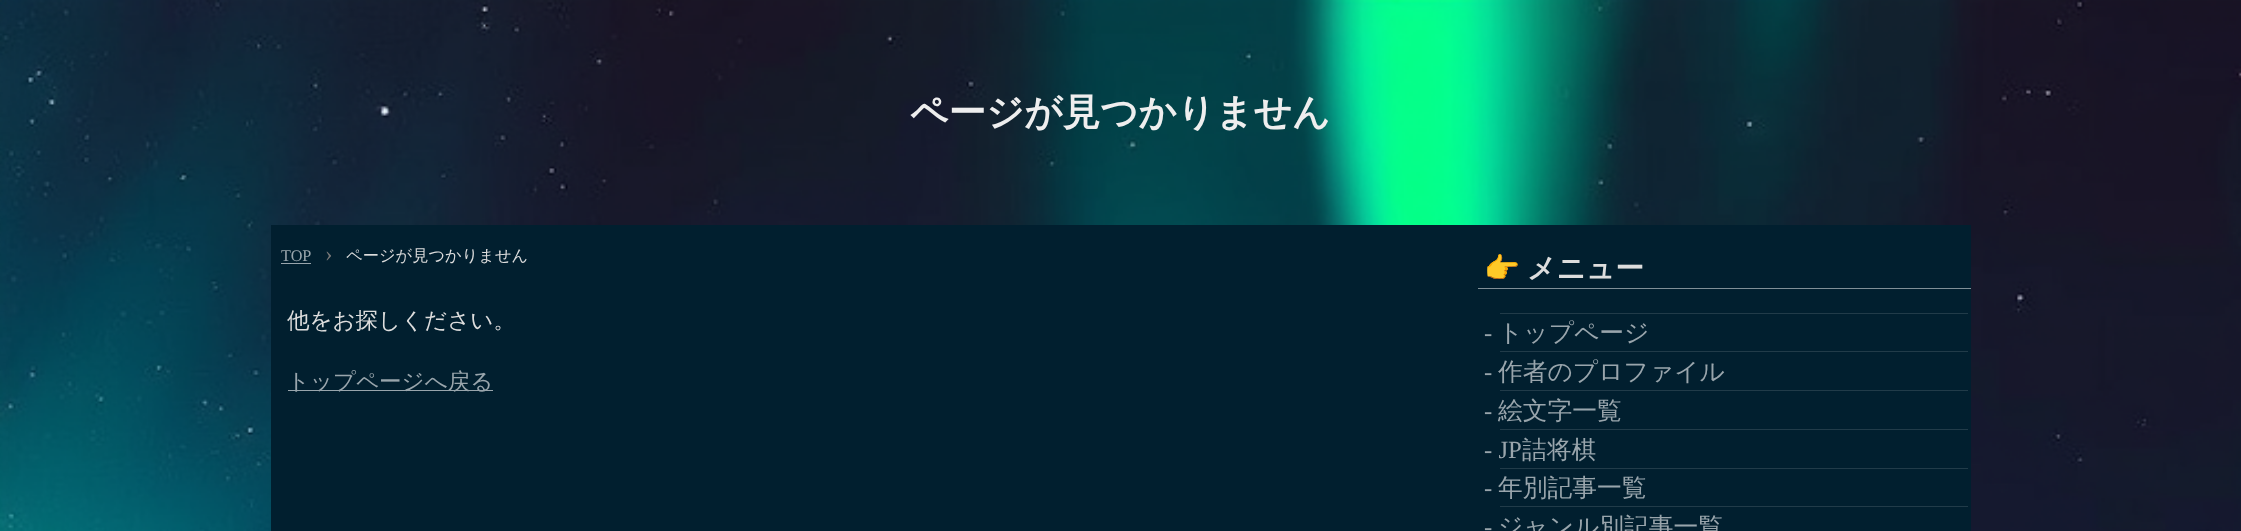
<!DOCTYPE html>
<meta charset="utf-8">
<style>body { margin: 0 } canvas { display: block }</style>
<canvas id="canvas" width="2241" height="531"></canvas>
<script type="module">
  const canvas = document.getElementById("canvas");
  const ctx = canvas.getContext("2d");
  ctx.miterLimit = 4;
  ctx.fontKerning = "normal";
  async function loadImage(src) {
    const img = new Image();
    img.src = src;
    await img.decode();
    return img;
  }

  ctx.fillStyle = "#ffffff";
  ctx.fillRect(0, 0, 2241, 531);
  ctx.drawImage(await loadImage("img1.png"), 0, 0, 2241, 531);
  ctx.font = "bold 37.5px WenQuanYi Zen Hei";
  ctx.fillStyle = "#eeeeee";
  ctx.fillText("ページが見つかりません", 910, 125);
  ctx.fillStyle = "#011f2f";
  ctx.fillRect(271, 225, 1700, 306);
  ctx.font = "16.25px Liberation Serif";
  ctx.fillStyle = "#99a5ac";
  ctx.fillText("TOP", 281, 261);
  ctx.fillRect(281, 263, 30, 1);
  ctx.font = "22.5px Liberation Serif";
  ctx.fillStyle = "#777777";
  ctx.fillText("›", 325, 261);
  ctx.font = "500 16.25px WenQuanYi Zen Hei";
  ctx.fillStyle = "#dddddd";
  ctx.fillText("ページが見つかりません", 346, 261);
  ctx.font = "500 22.5px WenQuanYi Zen Hei";
  ctx.fillText("他をお探しください。", 287, 328);
  ctx.fillStyle = "#99a5ac";
  ctx.fillRect(288, 390, 205, 1);
  ctx.fillText("トップページへ戻る", 287, 389);
  ctx.fillStyle = "#808f97";
  ctx.fillRect(1478, 288, 493, 1);
  ctx.font = "28.75px Noto Color Emoji";
  ctx.fillStyle = "#dddddd";
  ctx.fillText("👉", 1484, 278);
  ctx.font = "bold 28.75px WenQuanYi Zen Hei";
  ctx.fillText("メニュー", 1527, 278);
  ctx.fillStyle = "#213b49";
  ctx.fillRect(1500, 313, 468, 1);
  ctx.font = "24.75px Liberation Serif";
  ctx.fillStyle = "#99a5ac";
  ctx.fillText("-", 1484, 341);
  ctx.font = "500 24.75px WenQuanYi Zen Hei";
  ctx.fillText("トップページ", 1498, 341);
  ctx.fillStyle = "#213b49";
  ctx.fillRect(1500, 351, 468, 1);
  ctx.font = "24.75px Liberation Serif";
  ctx.fillStyle = "#99a5ac";
  ctx.fillText("-", 1484, 380);
  ctx.font = "500 24.75px WenQuanYi Zen Hei";
  ctx.fillText("作者のプロファイル", 1498, 380);
  ctx.fillStyle = "#213b49";
  ctx.fillRect(1500, 390, 468, 1);
  ctx.font = "24.75px Liberation Serif";
  ctx.fillStyle = "#99a5ac";
  ctx.fillText("-", 1484, 419);
  ctx.font = "500 24.75px WenQuanYi Zen Hei";
  ctx.fillText("絵文字一覧", 1498, 419);
  ctx.fillStyle = "#213b49";
  ctx.fillRect(1500, 429, 468, 1);
  ctx.font = "24.75px Liberation Serif";
  ctx.fillStyle = "#99a5ac";
  ctx.fillText("- JP", 1484, 458);
  ctx.font = "500 24.75px WenQuanYi Zen Hei";
  ctx.fillText("詰将棋", 1522, 458);
  ctx.fillStyle = "#213b49";
  ctx.fillRect(1500, 468, 468, 1);
  ctx.font = "24.75px Liberation Serif";
  ctx.fillStyle = "#99a5ac";
  ctx.fillText("-", 1484, 496);
  ctx.font = "500 24.75px WenQuanYi Zen Hei";
  ctx.fillText("年別記事一覧", 1498, 496);
  ctx.fillStyle = "#213b49";
  ctx.fillRect(1500, 506, 468, 1);
  ctx.font = "24.75px Liberation Serif";
  ctx.fillStyle = "#99a5ac";
  ctx.fillText("-", 1484, 535);
  ctx.font = "500 24.75px WenQuanYi Zen Hei";
  ctx.fillText("ジャンル別記事一覧", 1498, 535);
</script>
